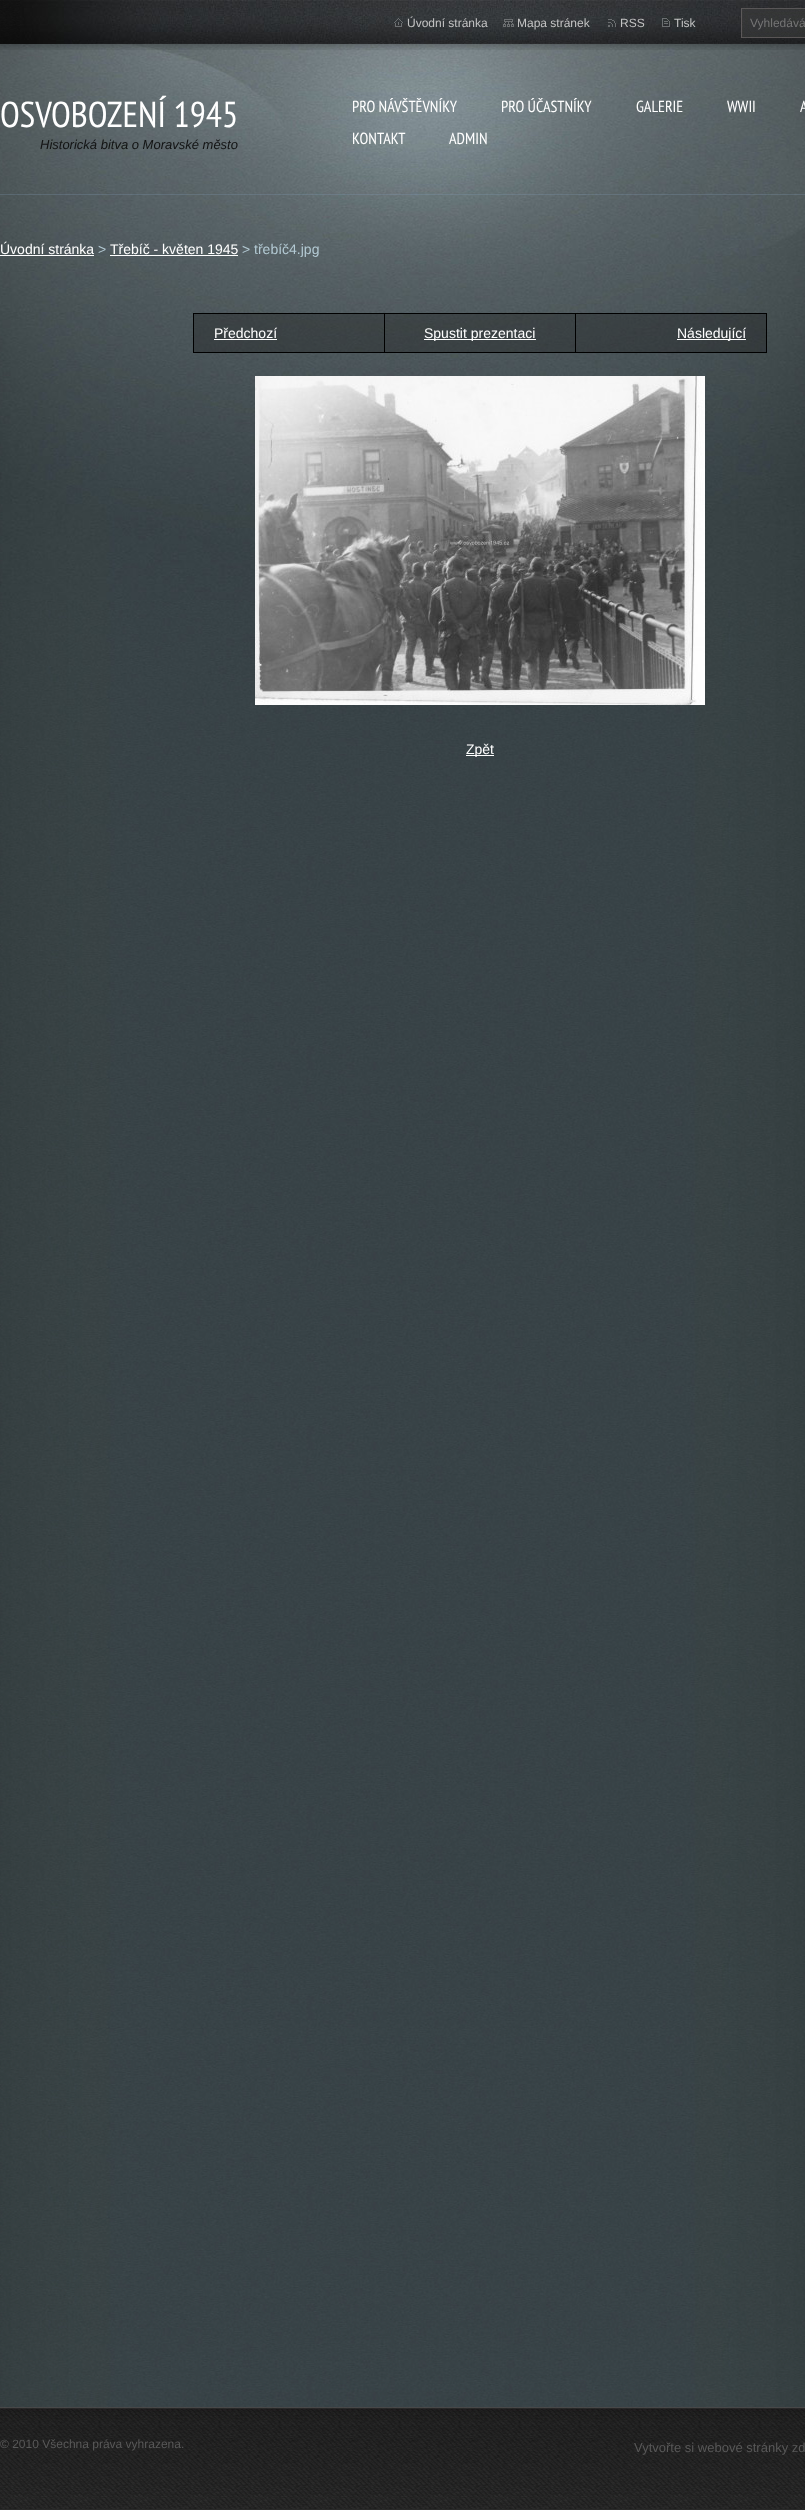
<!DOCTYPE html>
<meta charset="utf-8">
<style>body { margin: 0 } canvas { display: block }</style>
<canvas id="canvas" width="805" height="2510"></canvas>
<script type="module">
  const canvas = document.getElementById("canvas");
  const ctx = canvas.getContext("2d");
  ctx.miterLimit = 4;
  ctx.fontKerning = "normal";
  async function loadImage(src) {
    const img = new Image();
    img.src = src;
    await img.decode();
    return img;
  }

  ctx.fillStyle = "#ffffff";
  ctx.fillRect(0, 0, 805, 2510);
  ctx.drawImage(await loadImage("img1.png"), 0, 600, 805, 1807);
  ctx.drawImage(await loadImage("img2.png"), 0, 44, 805, 556);
  ctx.fillStyle = "rgba(131, 158, 185, 0.26)";
  ctx.fillRect(0, 194, 805, 1);
  ctx.drawImage(await loadImage("img3.png"), 0, 0, 805, 50);
  ctx.drawImage(await loadImage("img4.png"), 20, 0, 785, 44);
  ctx.drawImage(await loadImage("img5.png"), 394, 18, 9, 9);
  ctx.font = "12px Liberation Sans";
  ctx.fillStyle = "#c3c3c3";
  ctx.fillText("Úvodní stránka", 407, 27);
  ctx.drawImage(await loadImage("img6.png"), 503, 19, 11, 8);
  ctx.fillText("Mapa stránek", 517, 27);
  ctx.drawImage(await loadImage("img7.png"), 608, 19, 8, 8);
  ctx.fillText("RSS", 620, 27);
  ctx.drawImage(await loadImage("img8.png"), 662, 18, 8, 9);
  ctx.fillText("Tisk", 674, 27);
  ctx.drawImage(await loadImage("img9.png"), 741, 8, 64, 30);
  ctx.fillStyle = "#757575";
  ctx.fillText("Vyhledává", 750, 27);
  ctx.font = "36px PT Sans Narrow";
  ctx.fillStyle = "#ffffff";
  ctx.fillText("OSVOBOZENÍ 1945", 0, 127);
  ctx.font = "italic 13px Liberation Sans";
  ctx.fillStyle = "#121313";
  ctx.fillText("Historická bitva o Moravské město", 40, 149);
  ctx.font = "16px PT Sans Narrow";
  ctx.fillStyle = "#ffffff";
  ctx.fillText("PRO NÁVŠTĚVNÍKY", 352, 112);
  ctx.fillText("PRO ÚČASTNÍKY", 501, 112);
  ctx.fillText("GALERIE", 636, 112);
  ctx.fillText("WWII", 727, 112);
  ctx.fillText("A", 800, 112);
  ctx.fillText("KONTAKT", 352, 144);
  ctx.fillText("ADMIN", 449, 144);
  ctx.font = "14px Liberation Sans";
  ctx.fillText("Úvodní stránka", 0, 254);
  ctx.fillRect(0, 255, 94, 1);
  ctx.fillStyle = "#b3c9d3";
  ctx.fillText(">", 98, 254);
  ctx.fillStyle = "#ffffff";
  ctx.fillText("Třebíč - květen 1945", 110, 254);
  ctx.fillRect(110, 255, 128, 1);
  ctx.fillStyle = "#b3c9d3";
  ctx.fillText("> třebíč4.jpg", 242, 254);
  ctx.fillStyle = "#000000";
  ctx.fillRect(193, 313, 574, 1);
  ctx.fillRect(193, 313, 1, 40);
  ctx.fillStyle = "rgba(28, 28, 28, 0.36)";
  ctx.fillRect(194, 314, 190, 38);
  ctx.fillStyle = "#000000";
  ctx.fillRect(766, 313, 1, 40);
  ctx.fillRect(575, 352, 192, 1);
  ctx.fillRect(575, 313, 1, 40);
  ctx.fillRect(384, 352, 192, 1);
  ctx.fillRect(384, 313, 1, 40);
  ctx.fillRect(193, 352, 192, 1);
  ctx.fillStyle = "#ffffff";
  ctx.fillText("Předchozí", 214, 338);
  ctx.fillRect(214, 339, 63, 1);
  ctx.fillStyle = "rgba(28, 28, 28, 0.36)";
  ctx.fillRect(385, 314, 190, 38);
  ctx.fillStyle = "#ffffff";
  ctx.fillRect(424, 339, 112, 1);
  ctx.fillText("Spustit prezentaci", 424, 338);
  ctx.fillStyle = "rgba(28, 28, 28, 0.36)";
  ctx.fillRect(576, 314, 190, 38);
  ctx.fillStyle = "#ffffff";
  ctx.fillRect(677, 339, 69, 1);
  ctx.fillText("Následující", 677, 338);
  ctx.drawImage(await loadImage("img10.png"), 255, 376, 450, 329);
  ctx.fillRect(466, 755, 28, 1);
  ctx.fillText("Zpět", 466, 754);
  ctx.fillStyle = "#2a2a2a";
  ctx.fillRect(0, 2509, 805, 1);
  ctx.drawImage(await loadImage("img11.png"), 0, 2407, 805, 102);
  ctx.font = "12px Liberation Sans";
  ctx.fillStyle = "#585858";
  ctx.fillText("© 2010 Všechna práva vyhrazena.", 0, 2448);
  ctx.font = "13px Liberation Sans";
  ctx.fillText("Vytvořte si webové stránky zd", 634, 2452);
</script>
